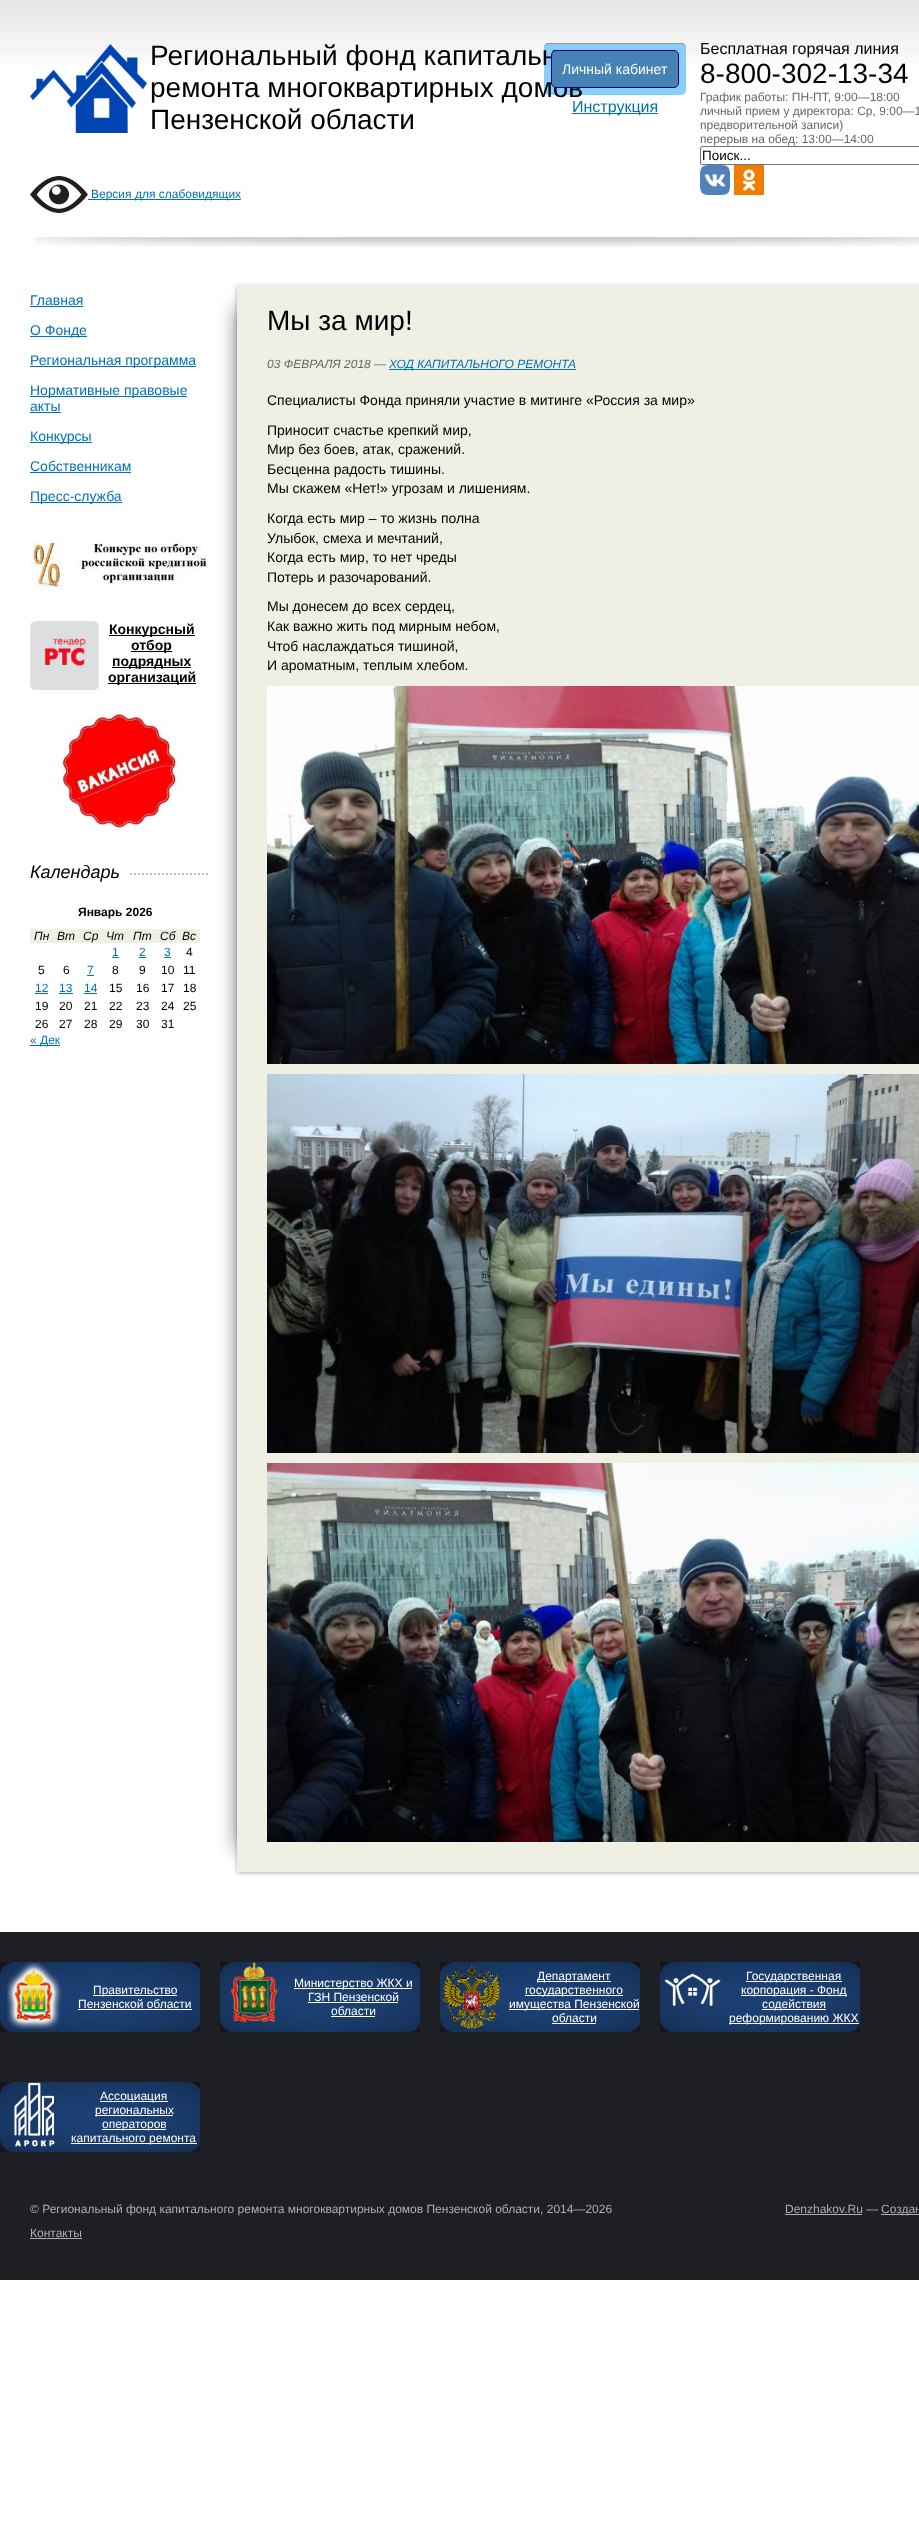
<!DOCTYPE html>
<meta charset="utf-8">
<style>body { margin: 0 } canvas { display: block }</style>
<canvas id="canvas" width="919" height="2546"></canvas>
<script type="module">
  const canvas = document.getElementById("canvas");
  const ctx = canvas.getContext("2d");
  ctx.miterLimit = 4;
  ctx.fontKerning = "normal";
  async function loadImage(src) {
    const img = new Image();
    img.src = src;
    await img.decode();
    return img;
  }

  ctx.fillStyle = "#ffffff";
  ctx.fillRect(0, 0, 919, 2546);
  ctx.drawImage(await loadImage("img1.png"), 0, 0, 919, 64);
  ctx.drawImage(await loadImage("img2.png"), 34, 237, 885, 10);
  ctx.drawImage(await loadImage("img3.png"), 34, 237, 885, 10);
  ctx.drawImage(await loadImage("img4.png"), 30, 44, 117, 89);
  ctx.fillStyle = "#87cefa";
  ctx.beginPath();
  ctx.roundRect(544, 43, 142, 52, 5);
  ctx.fill();
  ctx.fillStyle = "#909193";
  ctx.beginPath();
  ctx.moveTo(549, 44);
  ctx.lineTo(681, 44);
  ctx.bezierCurveTo(684, 44, 686, 46, 686, 49);
  ctx.lineTo(686, 48);
  ctx.bezierCurveTo(686, 45, 684, 43, 681, 43);
  ctx.lineTo(549, 43);
  ctx.bezierCurveTo(546, 43, 544, 45, 544, 48);
  ctx.lineTo(544, 49);
  ctx.bezierCurveTo(544, 46, 546, 44, 549, 44);
  ctx.closePath();
  ctx.fill();
  ctx.font = "28px Liberation Sans";
  ctx.fillStyle = "#000000";
  ctx.fillText("Региональный фонд капитальн", 150, 65);
  ctx.fillText("ремонта многоквартирных домов", 150, 97);
  ctx.fillText("Пензенской области", 150, 129);
  ctx.fillStyle = "#4682b4";
  ctx.beginPath();
  ctx.roundRect(551.5, 50.5, 127, 37, 4.5);
  ctx.fill();
  ctx.strokeStyle = "#00008b";
  ctx.stroke();
  ctx.font = "14px Liberation Sans";
  ctx.fillStyle = "#ffffff";
  ctx.fillText("Личный кабинет", 562, 74);
  ctx.fillStyle = "#0072bc";
  ctx.fillRect(572, 113, 86, 1);
  ctx.font = "16px Liberation Sans";
  ctx.fillText("Инструкция", 572, 112);
  ctx.fillStyle = "#000000";
  ctx.fillText("Бесплатная горячая линия", 700, 54);
  ctx.font = "28px Liberation Sans";
  ctx.fillText("8-800-302-13-34", 700, 83);
  ctx.font = "12px Liberation Sans";
  ctx.fillStyle = "#666666";
  ctx.fillText("График работы: ПН-ПТ, 9:00—18:00", 700, 101);
  ctx.fillText("личный прием у директора: Ср, 9:00—1", 700, 115);
  ctx.fillText("предворительной записи)", 700, 129);
  ctx.fillText("перерыв на обед: 13:00—14:00", 700, 143);
  ctx.beginPath();
  ctx.roundRect(700.5, 146.5, 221, 18, 1.5);
  ctx.strokeStyle = "#767676";
  ctx.stroke();
  ctx.font = "13.5px Liberation Sans";
  ctx.fillStyle = "#000000";
  ctx.fillText("Поиск...", 702, 160);
  ctx.drawImage(await loadImage("img5.png"), 700, 165, 30, 30);
  ctx.drawImage(await loadImage("img6.png"), 734, 165, 30, 30);
  ctx.drawImage(await loadImage("img7.png"), 30, 176, 58, 37);
  ctx.fillStyle = "#0072bc";
  ctx.fillRect(88, 199, 153, 1);
  ctx.font = "12px Liberation Sans";
  ctx.fillText("Версия для слабовидящих", 91, 198);
  ctx.font = "14px Liberation Sans";
  ctx.fillText("Главная", 30, 305);
  ctx.fillRect(30, 306, 53, 1);
  ctx.fillRect(30, 336, 57, 1);
  ctx.fillText("О Фонде", 30, 335);
  ctx.fillRect(30, 366, 166, 1);
  ctx.fillText("Региональная программа", 30, 365);
  ctx.fillRect(30, 396, 157, 1);
  ctx.fillText("Нормативные правовые", 30, 395);
  ctx.fillText("акты", 30, 411);
  ctx.fillRect(30, 412, 31, 1);
  ctx.fillRect(30, 442, 62, 1);
  ctx.fillText("Конкурсы", 30, 441);
  ctx.fillText("Собственникам", 30, 471);
  ctx.fillRect(30, 472, 101, 1);
  ctx.fillRect(30, 502, 92, 1);
  ctx.fillText("Пресс-служба", 30, 501);
  ctx.drawImage(await loadImage("img8.png"), 30, 541, 177, 48);
  ctx.drawImage(await loadImage("img9.png"), 30, 621, 69, 69);
  ctx.fillStyle = "#000000";
  ctx.fillRect(109, 635, 86, 1);
  ctx.font = "bold 14px Liberation Sans";
  ctx.fillText("Конкурсный", 109, 634);
  ctx.fillRect(131, 651, 41, 1);
  ctx.fillText("отбор", 131, 650);
  ctx.fillRect(112, 667, 79, 1);
  ctx.fillText("подрядных", 112, 666);
  ctx.fillRect(108, 683, 88, 1);
  ctx.fillText("организаций", 108, 682);
  ctx.drawImage(await loadImage("img10.png"), 58, 712, 125, 119);
  ctx.beginPath();
  ctx.moveTo(30, 874);
  ctx.lineTo(209, 874);
  ctx.strokeStyle = "#bbbdc5";
  ctx.lineWidth = 2;
  ctx.setLineDash([2, 2]);
  ctx.stroke();
  ctx.fillStyle = "#ffffff";
  ctx.fillRect(30, 873, 98, 2);
  ctx.font = "italic 18px Liberation Sans";
  ctx.fillStyle = "#000000";
  ctx.fillText("Календарь", 30, 878);
  ctx.font = "bold 12px Liberation Sans";
  ctx.fillText("Январь 2026", 78, 916);
  ctx.fillStyle = "#efefe4";
  ctx.fillRect(30, 929, 170, 14);
  ctx.font = "italic 12px Liberation Sans";
  ctx.fillStyle = "#000000";
  ctx.fillText("Пн", 34, 940);
  ctx.fillText("Вт", 57, 940);
  ctx.fillText("Ср", 83, 940);
  ctx.fillText("Чт", 106, 940);
  ctx.fillText("Пт", 133, 940);
  ctx.fillText("Сб", 160, 940);
  ctx.fillText("Вс", 182, 940);
  ctx.font = "12px Liberation Sans";
  ctx.fillStyle = "#0072bc";
  ctx.fillText("1", 112, 956);
  ctx.fillRect(112, 957, 7, 1);
  ctx.fillText("2", 139, 956);
  ctx.fillRect(139, 957, 7, 1);
  ctx.fillText("3", 164, 956);
  ctx.fillRect(164, 957, 7, 1);
  ctx.fillStyle = "#000000";
  ctx.fillText("4", 186, 956);
  ctx.fillText("5", 38, 974);
  ctx.fillText("6", 63, 974);
  ctx.fillStyle = "#0072bc";
  ctx.fillText("7", 87, 974);
  ctx.fillRect(87, 975, 7, 1);
  ctx.fillStyle = "#000000";
  ctx.fillText("8", 112, 974);
  ctx.fillText("9", 139, 974);
  ctx.fillText("10", 161, 974);
  ctx.fillText("11", 183, 974);
  ctx.fillStyle = "#0072bc";
  ctx.fillText("12", 35, 992);
  ctx.fillRect(35, 993, 13, 1);
  ctx.fillText("13", 59, 992);
  ctx.fillRect(59, 993, 14, 1);
  ctx.fillText("14", 84, 992);
  ctx.fillRect(84, 993, 13, 1);
  ctx.fillStyle = "#000000";
  ctx.fillText("15", 109, 992);
  ctx.fillText("16", 136, 992);
  ctx.fillText("17", 161, 992);
  ctx.fillText("18", 183, 992);
  ctx.fillText("19", 35, 1010);
  ctx.fillText("20", 59, 1010);
  ctx.fillText("21", 84, 1010);
  ctx.fillText("22", 109, 1010);
  ctx.fillText("23", 136, 1010);
  ctx.fillText("24", 161, 1010);
  ctx.fillText("25", 183, 1010);
  ctx.fillText("26", 35, 1028);
  ctx.fillText("27", 59, 1028);
  ctx.fillText("28", 84, 1028);
  ctx.fillText("29", 109, 1028);
  ctx.fillText("30", 136, 1028);
  ctx.fillText("31", 161, 1028);
  ctx.fillStyle = "#0072bc";
  ctx.fillRect(30, 1045, 30, 1);
  ctx.fillText("« Дек", 30, 1044);
  ctx.fillStyle = "rgba(0, 0, 0, 0.5)";
  ctx.filter = "blur(10px)";
  ctx.beginPath();
  ctx.rect(237, 308, 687, 1541);
  ctx.fill();
  ctx.filter = "none";
  ctx.fillStyle = "rgba(0, 0, 0, 0.3)";
  ctx.filter = "blur(2px)";
  ctx.beginPath();
  ctx.rect(237, 286, 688, 1587);
  ctx.fill();
  ctx.filter = "none";
  ctx.fillStyle = "#efefe4";
  ctx.fillRect(237, 285, 682, 1587);
  ctx.font = "28px Liberation Sans";
  ctx.fillStyle = "#000000";
  ctx.fillText("Мы за мир!", 267, 330);
  ctx.font = "italic 12px Liberation Sans";
  ctx.fillStyle = "#666666";
  ctx.fillText("03 ФЕВРАЛЯ 2018 —", 267, 368);
  ctx.fillStyle = "#0072bc";
  ctx.fillRect(389, 369, 187, 1);
  ctx.fillText("ХОД КАПИТАЛЬНОГО РЕМОНТА", 389, 368);
  ctx.font = "14px Liberation Sans";
  ctx.fillStyle = "#000000";
  ctx.fillText("Специалисты Фонда приняли участие в митинге «Россия за мир»", 267, 405);
  ctx.fillText("Приносит счастье крепкий мир,", 267, 435);
  ctx.fillText("Мир без боев, атак, сражений.", 267, 454);
  ctx.fillText("Бесценна радость тишины.", 267, 474);
  ctx.fillText("Мы скажем «Нет!» угрозам и лишениям.", 267, 493);
  ctx.fillText("Когда есть мир – то жизнь полна", 267, 523);
  ctx.fillText("Улыбок, смеха и мечтаний,", 267, 543);
  ctx.fillText("Когда есть мир, то нет чреды", 267, 562);
  ctx.fillText("Потерь и разочарований.", 267, 582);
  ctx.fillText("Мы донесем до всех сердец,", 267, 611);
  ctx.fillText("Как важно жить под мирным небом,", 267, 631);
  ctx.fillText("Чтоб наслаждаться тишиной,", 267, 651);
  ctx.fillText("И ароматным, теплым хлебом.", 267, 670);
  ctx.drawImage(await loadImage("img11.png"), 267, 686, 652, 378);
  ctx.drawImage(await loadImage("img12.png"), 267, 1074, 652, 379);
  ctx.drawImage(await loadImage("img13.png"), 267, 1463, 652, 379);
  ctx.fillStyle = "#1e1f25";
  ctx.fillRect(0, 1932, 919, 348);
  ctx.drawImage(await loadImage("img14.png"), 0, 1962, 200, 70);
  ctx.drawImage(await loadImage("img15.png"), 7, 1962, 55, 68);
  ctx.fillStyle = "#ffffff";
  ctx.fillRect(93, 1995, 84, 1);
  ctx.font = "12px Liberation Sans";
  ctx.fillText("Правительство", 93, 1994);
  ctx.fillText("Пензенской области", 78, 2008);
  ctx.fillRect(78, 2009, 114, 1);
  ctx.drawImage(await loadImage("img14.png"), 220, 1962, 200, 70);
  ctx.drawImage(await loadImage("img16.png"), 230, 1962, 48, 61);
  ctx.fillRect(294, 1988, 118, 1);
  ctx.fillText("Министерство ЖКХ и", 294, 1987);
  ctx.fillText("ГЗН Пензенской", 308, 2001);
  ctx.fillRect(308, 2002, 90, 1);
  ctx.fillText("области", 331, 2015);
  ctx.fillRect(331, 2016, 44, 1);
  ctx.drawImage(await loadImage("img14.png"), 440, 1962, 200, 70);
  ctx.drawImage(await loadImage("img17.png"), 442, 1964, 60, 66);
  ctx.fillRect(537, 1981, 74, 1);
  ctx.fillText("Департамент", 537, 1980);
  ctx.fillRect(525, 1995, 98, 1);
  ctx.fillText("государственного", 525, 1994);
  ctx.fillRect(509, 2009, 130, 1);
  ctx.fillText("имущества Пензенской", 509, 2008);
  ctx.fillText("области", 552, 2022);
  ctx.fillRect(552, 2023, 44, 1);
  ctx.drawImage(await loadImage("img14.png"), 660, 1962, 200, 70);
  ctx.drawImage(await loadImage("img18.png"), 664, 1973, 57, 33);
  ctx.fillRect(746, 1981, 96, 1);
  ctx.fillText("Государственная", 746, 1980);
  ctx.fillRect(741, 1995, 106, 1);
  ctx.fillText("корпорация - Фонд", 741, 1994);
  ctx.fillRect(762, 2009, 64, 1);
  ctx.fillText("содействия", 762, 2008);
  ctx.fillRect(729, 2023, 130, 1);
  ctx.fillText("реформированию ЖКХ", 729, 2022);
  ctx.drawImage(await loadImage("img14.png"), 0, 2082, 200, 70);
  ctx.drawImage(await loadImage("img19.png"), 14, 2082, 41, 65);
  ctx.fillRect(100, 2101, 68, 1);
  ctx.fillText("Ассоциация", 100, 2100);
  ctx.fillRect(95, 2115, 78, 1);
  ctx.fillText("региональных", 95, 2114);
  ctx.fillRect(102, 2129, 64, 1);
  ctx.fillText("операторов", 102, 2128);
  ctx.fillRect(71, 2143, 126, 1);
  ctx.fillText("капитального ремонта", 71, 2142);
  ctx.fillStyle = "#aeaead";
  ctx.fillText("© Региональный фонд капитального ремонта многоквартирных домов Пензенской области, 2014—2026", 30, 2213);
  ctx.fillText("Denzhakov.Ru —", 785, 2213);
  ctx.fillRect(785, 2214, 77, 1);
  ctx.fillRect(881, 2214, 38, 1);
  ctx.fillText("Создан", 881, 2213);
  ctx.fillText("Контакты", 30, 2237);
  ctx.fillRect(30, 2238, 52, 1);
</script>
